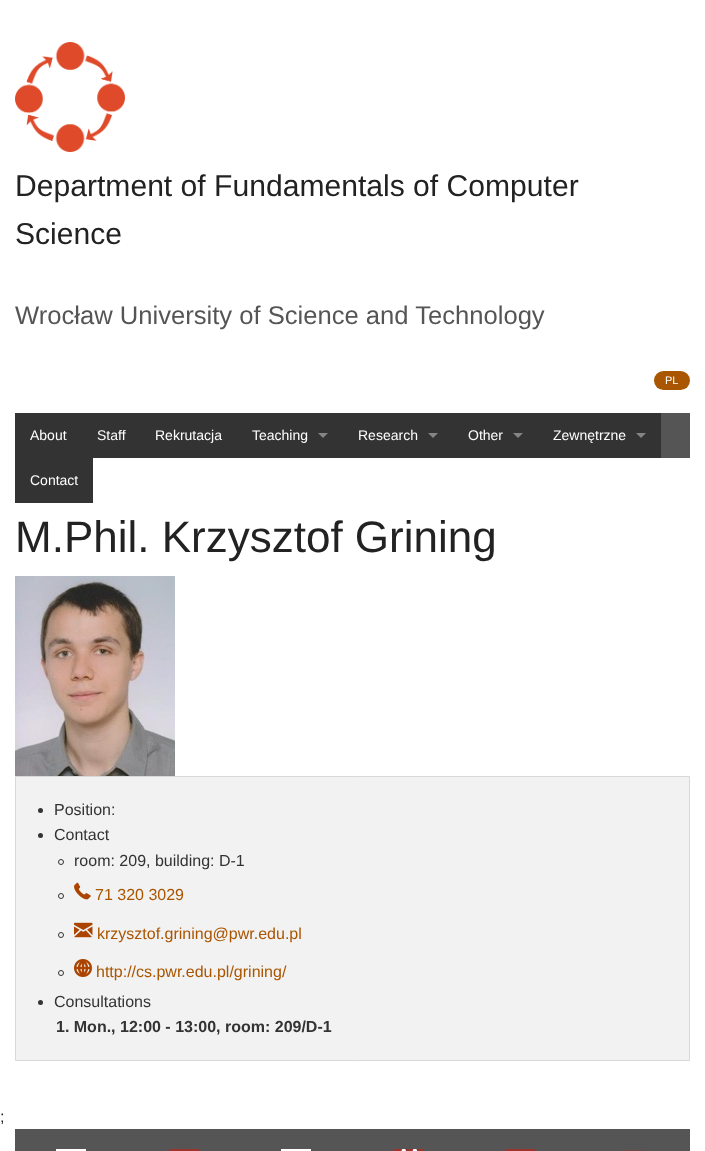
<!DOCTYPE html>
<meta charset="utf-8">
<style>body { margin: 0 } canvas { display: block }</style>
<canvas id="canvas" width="705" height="1151"></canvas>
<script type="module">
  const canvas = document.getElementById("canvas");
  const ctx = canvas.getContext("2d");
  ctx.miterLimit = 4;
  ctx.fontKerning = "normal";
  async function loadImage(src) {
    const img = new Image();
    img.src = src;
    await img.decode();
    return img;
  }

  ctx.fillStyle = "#ffffff";
  ctx.fillRect(0, 0, 705, 1151);
  ctx.drawImage(await loadImage("img1.png"), 15, 42, 110, 110);
  ctx.font = "30.1px Liberation Sans";
  ctx.fillStyle = "#222222";
  ctx.fillText("Department of Fundamentals of Computer", 15, 196);
  ctx.fillText("Science", 15, 244);
  ctx.font = "25.6px Liberation Sans";
  ctx.fillStyle = "#555555";
  ctx.fillText("Wrocław University of Science and Technology", 15, 324);
  ctx.fillStyle = "#aa5500";
  ctx.beginPath();
  ctx.roundRect(654, 371, 36, 19, 9.5);
  ctx.fill();
  ctx.font = "11px Liberation Sans";
  ctx.fillStyle = "#ffffff";
  ctx.fillText("PL", 665, 384);
  ctx.fillStyle = "#555555";
  ctx.fillRect(661, 413, 29, 45);
  ctx.fillStyle = "#333333";
  ctx.fillRect(15, 413, 646, 45);
  ctx.font = "14px Liberation Sans";
  ctx.fillStyle = "#ffffff";
  ctx.fillText("About", 30, 440);
  ctx.fillText("Staff", 97, 440);
  ctx.fillText("Rekrutacja", 155, 440);
  ctx.fillText("Teaching", 252, 440);
  ctx.fillStyle = "#858585";
  ctx.beginPath();
  ctx.moveTo(318, 433);
  ctx.lineTo(328, 433);
  ctx.lineTo(323, 438);
  ctx.closePath();
  ctx.fill();
  ctx.fillStyle = "#ffffff";
  ctx.fillText("Research", 358, 440);
  ctx.fillStyle = "#858585";
  ctx.beginPath();
  ctx.moveTo(428, 433);
  ctx.lineTo(438, 433);
  ctx.lineTo(433, 438);
  ctx.closePath();
  ctx.fill();
  ctx.fillStyle = "#ffffff";
  ctx.fillText("Other", 468, 440);
  ctx.fillStyle = "#858585";
  ctx.beginPath();
  ctx.moveTo(513, 433);
  ctx.lineTo(523, 433);
  ctx.lineTo(518, 438);
  ctx.closePath();
  ctx.fill();
  ctx.fillStyle = "#ffffff";
  ctx.fillText("Zewnętrzne", 553, 440);
  ctx.fillStyle = "#858585";
  ctx.beginPath();
  ctx.moveTo(636, 433);
  ctx.lineTo(646, 433);
  ctx.lineTo(641, 438);
  ctx.closePath();
  ctx.fill();
  ctx.fillStyle = "#333333";
  ctx.fillRect(15, 458, 78, 45);
  ctx.fillStyle = "#ffffff";
  ctx.fillText("Contact", 30, 485);
  ctx.font = "44px Liberation Sans";
  ctx.fillStyle = "#222222";
  ctx.fillText("M.Phil. Krzysztof Grining", 15, 552);
  ctx.drawImage(await loadImage("img2.png"), 15, 576, 160, 200);
  ctx.fillStyle = "#f2f2f2";
  ctx.beginPath();
  ctx.rect(15.5, 776.5, 674, 284);
  ctx.fill();
  ctx.strokeStyle = "#d8d8d8";
  ctx.stroke();
  ctx.fillStyle = "#333333";
  ctx.beginPath();
  ctx.arc(40.5, 810.5, 2.5, 0, Math.PI * 2);
  ctx.fill();
  ctx.font = "16px Liberation Sans";
  ctx.fillText("Position:", 54, 815);
  ctx.beginPath();
  ctx.arc(40.5, 835.5, 2.5, 0, Math.PI * 2);
  ctx.fill();
  ctx.fillText("Contact", 54, 840);
  ctx.beginPath();
  ctx.arc(61, 862, 2.5, 0, Math.PI * 2);
  ctx.strokeStyle = "#333333";
  ctx.stroke();
  ctx.fillText("room: 209, building: D-1", 74, 866);
  ctx.beginPath();
  ctx.arc(61, 896, 2.5, 0, Math.PI * 2);
  ctx.stroke();
  ctx.drawImage(await loadImage("img3.png"), 74, 882, 17, 18);
  ctx.fillStyle = "#aa5500";
  ctx.fillText("71 320 3029", 95, 900);
  ctx.beginPath();
  ctx.arc(61, 935, 2.5, 0, Math.PI * 2);
  ctx.stroke();
  ctx.drawImage(await loadImage("img4.png"), 74, 922, 19, 16);
  ctx.fillText("krzysztof.grining@pwr.edu.pl", 97, 939);
  ctx.beginPath();
  ctx.arc(61, 973, 2.5, 0, Math.PI * 2);
  ctx.stroke();
  ctx.drawImage(await loadImage("img5.png"), 74, 959, 18, 18);
  ctx.fillText("http://cs.pwr.edu.pl/grining/", 96, 977);
  ctx.fillStyle = "#333333";
  ctx.beginPath();
  ctx.arc(40.5, 1002.5, 2.5, 0, Math.PI * 2);
  ctx.fill();
  ctx.fillText("Consultations", 54, 1007);
  ctx.font = "bold 16px Liberation Sans";
  ctx.fillText("1. Mon., 12:00 - 13:00, room: 209/D-1", 56, 1032);
  ctx.font = "16px Liberation Sans";
  ctx.fillStyle = "#222222";
  ctx.fillText(";", 0, 1122);
  ctx.fillStyle = "#555555";
  ctx.fillRect(15, 1129, 675, 22);
  ctx.fillStyle = "#ffffff";
  ctx.fillRect(56, 1149, 30, 2);
  ctx.fillStyle = "#9a342d";
  ctx.fillRect(169, 1149, 30, 2);
  ctx.fillStyle = "#ffffff";
  ctx.fillRect(281, 1149, 30, 2);
  ctx.drawImage(await loadImage("img6.png"), 394, 1149, 30, 2);
  ctx.fillStyle = "#9a342d";
  ctx.fillRect(506, 1149, 30, 2);
  ctx.drawImage(await loadImage("img7.png"), 623, 1150, 22, 1);
</script>
